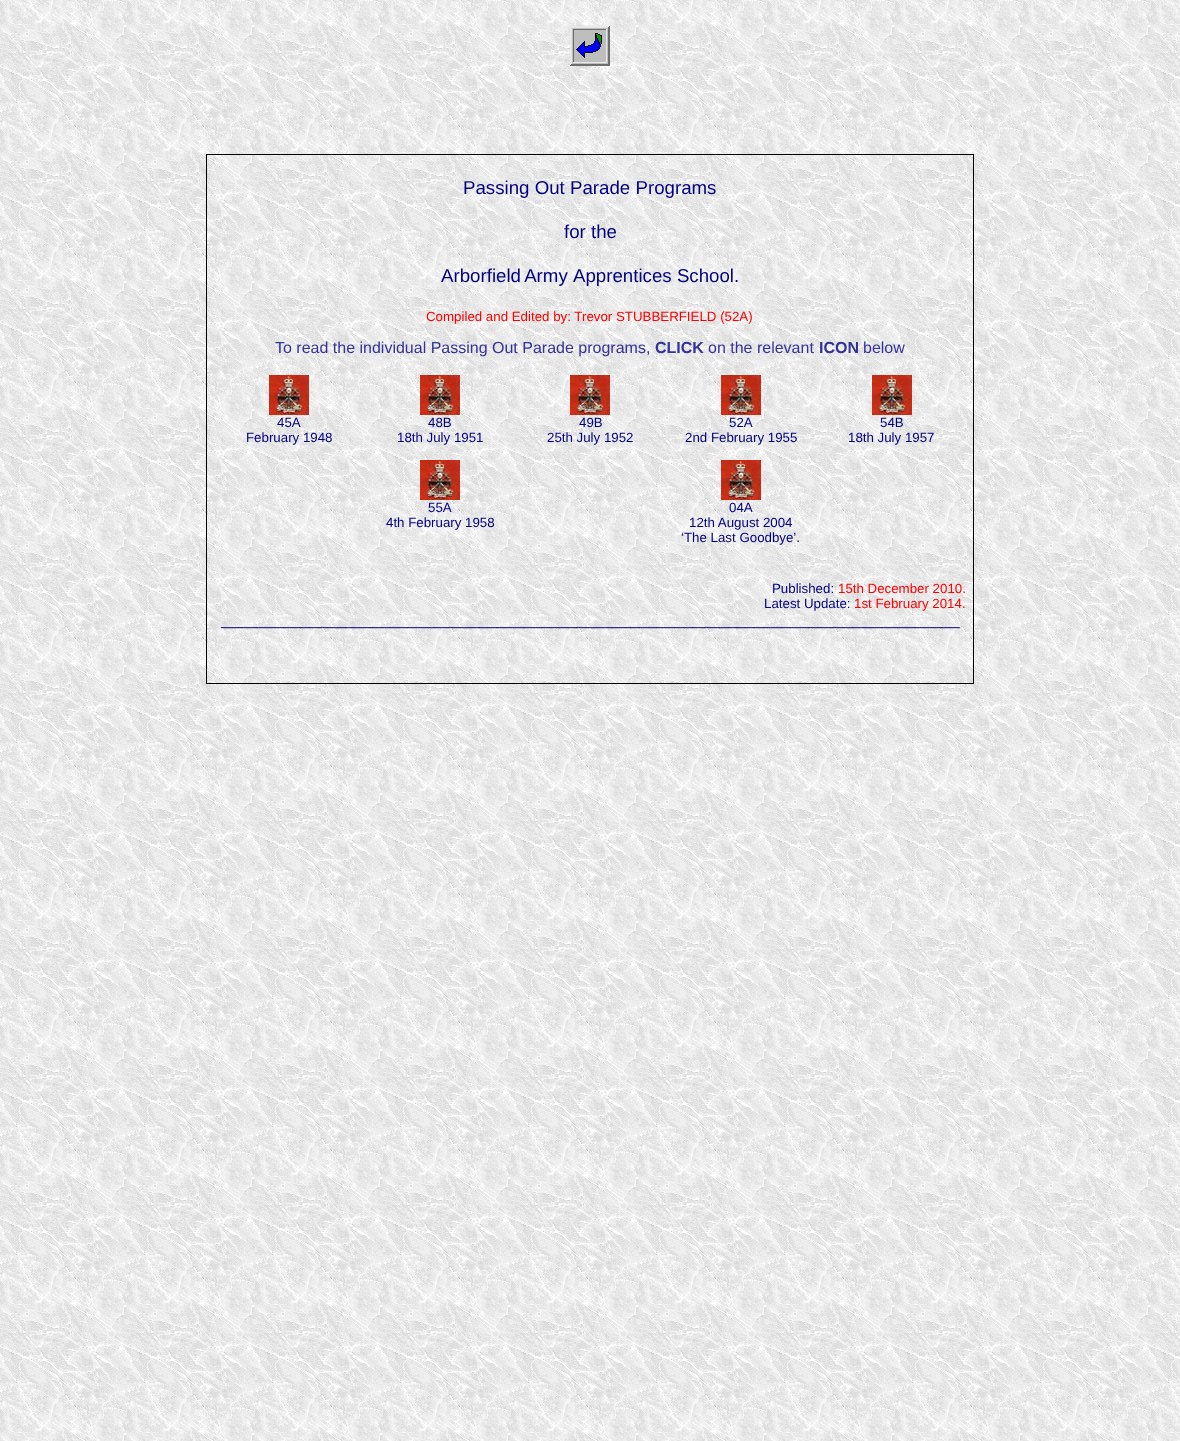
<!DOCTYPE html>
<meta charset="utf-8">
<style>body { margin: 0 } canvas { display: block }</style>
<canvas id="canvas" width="1180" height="1441"></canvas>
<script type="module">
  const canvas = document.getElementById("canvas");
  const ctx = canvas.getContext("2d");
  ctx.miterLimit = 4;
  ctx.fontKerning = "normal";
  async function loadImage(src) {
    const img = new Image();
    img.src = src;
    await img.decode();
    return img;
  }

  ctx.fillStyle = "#ffffff";
  ctx.fillRect(0, 0, 1180, 1441);
  ctx.drawImage(await loadImage("img1.png"), 0, 0, 1180, 1441);
  ctx.drawImage(await loadImage("img2.png"), 570, 26, 40, 40);
  ctx.fillStyle = "#000000";
  ctx.fillRect(206, 154, 768, 1);
  ctx.fillRect(973, 339, 1, 345);
  ctx.fillRect(973, 154, 1, 186);
  ctx.fillRect(206, 683, 768, 1);
  ctx.fillRect(206, 339, 1, 345);
  ctx.fillRect(206, 154, 1, 186);
  ctx.font = "18.7px Liberation Sans";
  ctx.fillStyle = "#000080";
  ctx.fillText("Passing Out Parade Programs", 463, 194);
  ctx.fillText("for the", 564, 238);
  ctx.wordSpacing = "-1px";
  ctx.fillText("Arborfield Army", 441, 282);
  ctx.wordSpacing = "0px";
  ctx.fillText("Apprentices School.", 573, 282);
  ctx.font = "13.3px Liberation Sans";
  ctx.fillStyle = "#ff0000";
  ctx.fillText("Compiled and Edited by: Trevor STUBBERFIELD (52A)", 426, 321);
  ctx.font = "16px Liberation Sans";
  ctx.fillStyle = "#333399";
  ctx.fillText("To read the individual Passing Out Parade programs,", 275, 353);
  ctx.font = "bold 16px Liberation Sans";
  ctx.fillText("CLICK", 655, 353);
  ctx.font = "16px Liberation Sans";
  ctx.fillText("on the relevant", 708, 353);
  ctx.font = "bold 16px Liberation Sans";
  ctx.fillText("ICON", 819, 353);
  ctx.font = "16px Liberation Sans";
  ctx.fillText("below", 863, 353);
  ctx.drawImage(await loadImage("img3.png"), 269, 375, 40, 40);
  ctx.font = "13.3px Liberation Sans";
  ctx.fillStyle = "#000080";
  ctx.fillText("45A", 277, 427);
  ctx.fillText("February 1948", 246, 442);
  ctx.drawImage(await loadImage("img3.png"), 420, 375, 40, 40);
  ctx.fillText("48B", 428, 427);
  ctx.fillText("18th July 1951", 397, 442);
  ctx.drawImage(await loadImage("img3.png"), 570, 375, 40, 40);
  ctx.fillText("49B", 579, 427);
  ctx.fillText("25th July 1952", 547, 442);
  ctx.drawImage(await loadImage("img3.png"), 721, 375, 40, 40);
  ctx.fillText("52A", 729, 427);
  ctx.fillText("2nd February 1955", 685, 442);
  ctx.drawImage(await loadImage("img3.png"), 872, 375, 40, 40);
  ctx.fillText("54B", 880, 427);
  ctx.fillText("18th July 1957", 848, 442);
  ctx.drawImage(await loadImage("img3.png"), 420, 460, 40, 40);
  ctx.fillText("55A", 428, 512);
  ctx.fillText("4th February 1958", 386, 527);
  ctx.drawImage(await loadImage("img3.png"), 721, 460, 40, 40);
  ctx.fillText("04A", 729, 512);
  ctx.fillText("12th August 2004", 689, 527);
  ctx.fillText("‘The Last Goodbye’.", 681, 542);
  ctx.fillText("Published:", 772, 593);
  ctx.fillStyle = "#ff0000";
  ctx.fillText("15th December 2010.", 838, 593);
  ctx.fillStyle = "#000080";
  ctx.fillText("Latest Update:", 764, 608);
  ctx.fillStyle = "#ff0000";
  ctx.fillText("1st February 2014.", 854, 608);
  ctx.font = "16px Liberation Sans";
  ctx.fillStyle = "#000080";
  ctx.fillText("___________________________________________________________________________________", 221, 625);
</script>
